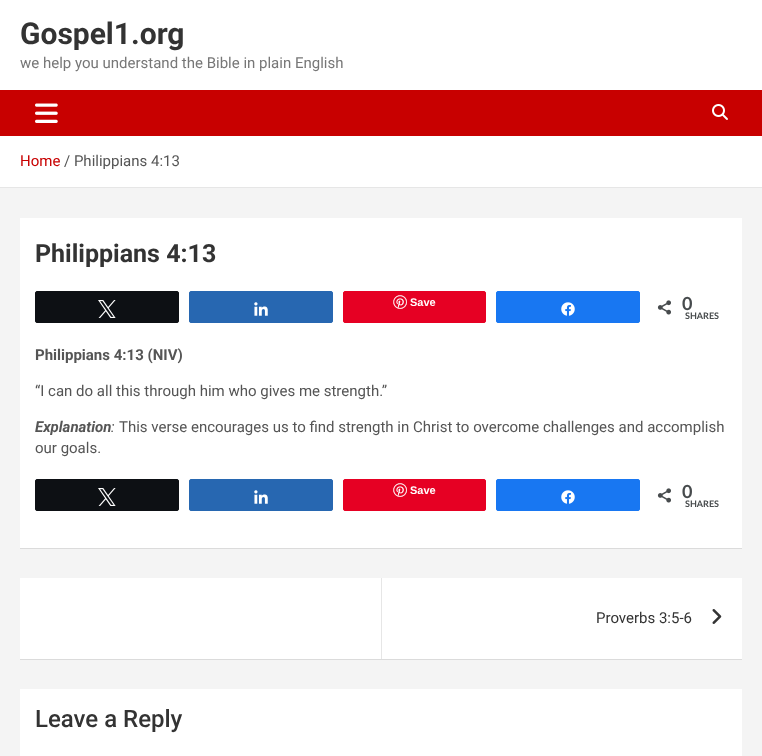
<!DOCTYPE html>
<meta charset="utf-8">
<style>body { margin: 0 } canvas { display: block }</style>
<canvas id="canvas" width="762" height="756"></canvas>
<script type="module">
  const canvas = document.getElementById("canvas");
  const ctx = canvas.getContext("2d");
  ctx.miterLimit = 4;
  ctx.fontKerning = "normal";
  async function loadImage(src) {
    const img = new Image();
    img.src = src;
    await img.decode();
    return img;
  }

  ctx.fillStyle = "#f4f4f4";
  ctx.fillRect(0, 0, 762, 756);
  ctx.fillStyle = "#ffffff";
  ctx.fillRect(0, 0, 762, 90);
  ctx.font = "bold 30px Roboto";
  ctx.fillStyle = "#333333";
  ctx.fillText("Gospel1.org", 20, 44);
  ctx.font = "15px Roboto";
  ctx.fillStyle = "#777777";
  ctx.fillText("we help you understand the Bible in plain English", 20, 68);
  ctx.fillStyle = "#c80000";
  ctx.fillRect(0, 90, 762, 46);
  ctx.drawImage(await loadImage("img1.png"), 35, 103, 23, 20);
  ctx.drawImage(await loadImage("img2.png"), 712, 104, 16, 16);
  ctx.fillStyle = "#ffffff";
  ctx.fillRect(0, 136, 762, 51);
  ctx.fillStyle = "#e6e6e6";
  ctx.fillRect(0, 187, 762, 1);
  ctx.fillStyle = "#c80000";
  ctx.fillText("Home", 20, 166);
  ctx.fillStyle = "#555555";
  ctx.fillText("/ Philippians 4:13", 64, 166);
  ctx.fillStyle = "rgba(0, 0, 0, 0.1)";
  ctx.filter = "blur(0.5px)";
  ctx.beginPath();
  ctx.rect(20, 219, 722, 330);
  ctx.fill();
  ctx.filter = "none";
  ctx.fillStyle = "#ffffff";
  ctx.fillRect(20, 218, 722, 330);
  ctx.font = "bold 25px Roboto";
  ctx.fillStyle = "#333333";
  ctx.fillText("Philippians 4:13", 35, 262);
  ctx.fillStyle = "#0d1014";
  ctx.beginPath();
  ctx.roundRect(35.5, 291.5, 143, 31, 1.5);
  ctx.fill();
  ctx.strokeStyle = "#0d1014";
  ctx.stroke();
  ctx.drawImage(await loadImage("img3.png"), 98, 300, 18, 18);
  ctx.fillStyle = "#2767b1";
  ctx.beginPath();
  ctx.roundRect(189.5, 291.5, 143, 31, 1.5);
  ctx.fill();
  ctx.strokeStyle = "#2767b1";
  ctx.stroke();
  ctx.drawImage(await loadImage("img4.png"), 254, 302, 14, 14);
  ctx.fillStyle = "#e60023";
  ctx.beginPath();
  ctx.roundRect(343.5, 291.5, 142, 31, 1.5);
  ctx.fill();
  ctx.strokeStyle = "#e60023";
  ctx.stroke();
  ctx.drawImage(await loadImage("img5.png"), 393, 295, 14, 14);
  ctx.font = "bold 11px Liberation Sans";
  ctx.fillStyle = "#ffffff";
  ctx.fillText("Save", 410, 306);
  ctx.fillStyle = "#1877f2";
  ctx.beginPath();
  ctx.roundRect(496.5, 291.5, 143, 31, 1.5);
  ctx.fill();
  ctx.strokeStyle = "#1877f2";
  ctx.stroke();
  ctx.drawImage(await loadImage("img6.png"), 561, 302, 14, 14);
  ctx.drawImage(await loadImage("img7.png"), 657, 300, 14, 15);
  ctx.font = "bold 18px Lato";
  ctx.fillStyle = "#474b4d";
  ctx.fillText("0", 682, 310);
  ctx.font = "bold 9px Lato";
  ctx.fillText("SHARES", 685, 319);
  ctx.font = "bold 15px Roboto";
  ctx.fillStyle = "#555555";
  ctx.fillText("Philippians 4:13 (NIV)", 35, 360);
  ctx.font = "15px Roboto";
  ctx.fillText("“I can do all this through him who gives me strength.”", 35, 396);
  ctx.font = "italic bold 15px Roboto";
  ctx.fillText("Explanation", 35, 432);
  ctx.font = "italic 15px Roboto";
  ctx.fillText(":", 111, 432);
  ctx.font = "15px Roboto";
  ctx.fillText("This verse encourages us to find strength in Christ to overcome challenges and accomplish", 119, 432);
  ctx.fillText("our goals.", 35, 453);
  ctx.fillStyle = "#0d1014";
  ctx.beginPath();
  ctx.roundRect(35.5, 479.5, 143, 31, 1.5);
  ctx.fill();
  ctx.strokeStyle = "#0d1014";
  ctx.stroke();
  ctx.drawImage(await loadImage("img3.png"), 98, 488, 18, 18);
  ctx.fillStyle = "#2767b1";
  ctx.beginPath();
  ctx.roundRect(189.5, 479.5, 143, 31, 1.5);
  ctx.fill();
  ctx.strokeStyle = "#2767b1";
  ctx.stroke();
  ctx.drawImage(await loadImage("img4.png"), 254, 490, 14, 14);
  ctx.fillStyle = "#e60023";
  ctx.beginPath();
  ctx.roundRect(343.5, 479.5, 142, 31, 1.5);
  ctx.fill();
  ctx.strokeStyle = "#e60023";
  ctx.stroke();
  ctx.drawImage(await loadImage("img5.png"), 393, 483, 14, 14);
  ctx.font = "bold 11px Liberation Sans";
  ctx.fillStyle = "#ffffff";
  ctx.fillText("Save", 410, 494);
  ctx.fillStyle = "#1877f2";
  ctx.beginPath();
  ctx.roundRect(496.5, 479.5, 143, 31, 1.5);
  ctx.fill();
  ctx.strokeStyle = "#1877f2";
  ctx.stroke();
  ctx.drawImage(await loadImage("img6.png"), 561, 490, 14, 14);
  ctx.drawImage(await loadImage("img7.png"), 657, 488, 14, 15);
  ctx.font = "bold 18px Lato";
  ctx.fillStyle = "#474b4d";
  ctx.fillText("0", 682, 498);
  ctx.font = "bold 9px Lato";
  ctx.fillText("SHARES", 685, 507);
  ctx.fillStyle = "rgba(0, 0, 0, 0.1)";
  ctx.filter = "blur(0.5px)";
  ctx.beginPath();
  ctx.rect(20, 579, 722, 81);
  ctx.fill();
  ctx.filter = "none";
  ctx.fillStyle = "#ffffff";
  ctx.fillRect(20, 578, 722, 81);
  ctx.fillStyle = "#e6e6e6";
  ctx.fillRect(381, 578, 1, 81);
  ctx.font = "15px Roboto";
  ctx.fillStyle = "#333333";
  ctx.fillText("Proverbs 3:5-6", 596, 623);
  ctx.drawImage(await loadImage("img8.png"), 712, 609, 10, 15);
  ctx.fillStyle = "#ffffff";
  ctx.fillRect(20, 689, 722, 67);
  ctx.font = "500 24px Roboto";
  ctx.fillStyle = "#333333";
  ctx.fillText("Leave a Reply", 35, 727);
</script>
